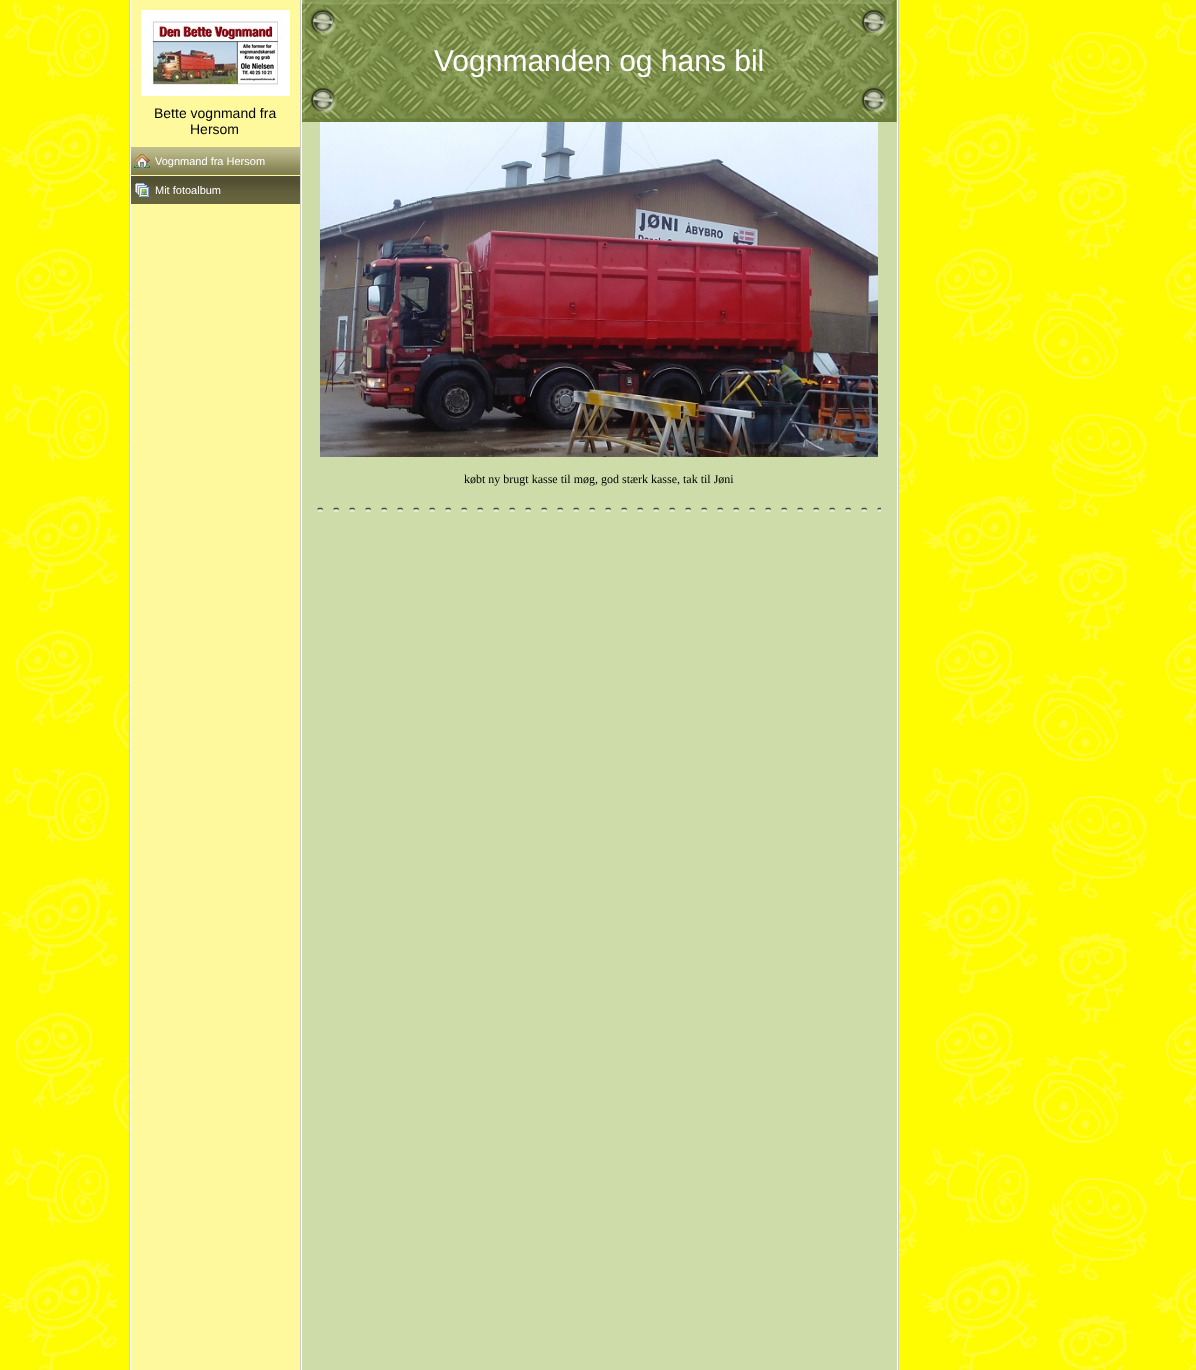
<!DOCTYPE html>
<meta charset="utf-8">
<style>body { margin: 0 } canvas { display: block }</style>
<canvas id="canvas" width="1196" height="1370"></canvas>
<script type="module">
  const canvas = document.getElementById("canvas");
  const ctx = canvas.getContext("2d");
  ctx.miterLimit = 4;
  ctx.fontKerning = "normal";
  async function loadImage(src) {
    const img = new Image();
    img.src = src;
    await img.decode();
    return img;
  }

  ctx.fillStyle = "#fffb00";
  ctx.fillRect(0, 0, 1196, 1370);
  ctx.drawImage(await loadImage("img1.png"), 1, 2, 1195, 1368);
  ctx.fillStyle = "#ffffff";
  ctx.fillRect(130, 0, 768, 1370);
  ctx.fillStyle = "#cccccc";
  ctx.fillRect(129, 0, 1, 1370);
  ctx.fillStyle = "#fff99d";
  ctx.fillRect(131, 0, 169, 1370);
  ctx.drawImage(await loadImage("img2.png"), 141, 10, 149, 86);
  ctx.font = "14px Liberation Sans";
  ctx.fillStyle = "#000000";
  ctx.fillText("Bette vognmand fra", 154, 118);
  ctx.fillText("Hersom", 190, 134);
  ctx.drawImage(await loadImage("img3.png"), 131, 147, 169, 28);
  ctx.drawImage(await loadImage("img4.png"), 134, 154, 16, 14);
  ctx.font = "11px Liberation Sans";
  ctx.fillStyle = "#ffffff";
  ctx.fillText("Vognmand fra Hersom", 155, 165);
  ctx.drawImage(await loadImage("img5.png"), 131, 176, 169, 28);
  ctx.drawImage(await loadImage("img6.png"), 135, 183, 14, 14);
  ctx.fillText("Mit fotoalbum", 155, 194);
  ctx.fillStyle = "#cccccc";
  ctx.fillRect(300, 0, 1, 1370);
  ctx.fillStyle = "#cedcaa";
  ctx.fillRect(302, 122, 595, 1248);
  ctx.fillStyle = "#89a249";
  ctx.fillRect(302, 0, 595, 122);
  ctx.drawImage(await loadImage("img7.png"), 302, 0, 594, 122);
  ctx.font = "30px Liberation Sans";
  ctx.fillStyle = "#ffffff";
  ctx.fillText("Vognmanden og hans bil", 434, 71);
  ctx.drawImage(await loadImage("img8.png"), 320, 122, 558, 335);
  ctx.font = "12px Liberation Serif";
  ctx.fillStyle = "#000000";
  ctx.fillText("købt ny brugt kasse til møg, god stærk kasse, tak til Jøni", 464, 483);
  ctx.drawImage(await loadImage("img9.png"), 317, 507, 564, 5);
  ctx.fillStyle = "#cccccc";
  ctx.fillRect(898, 0, 1, 1370);
</script>
